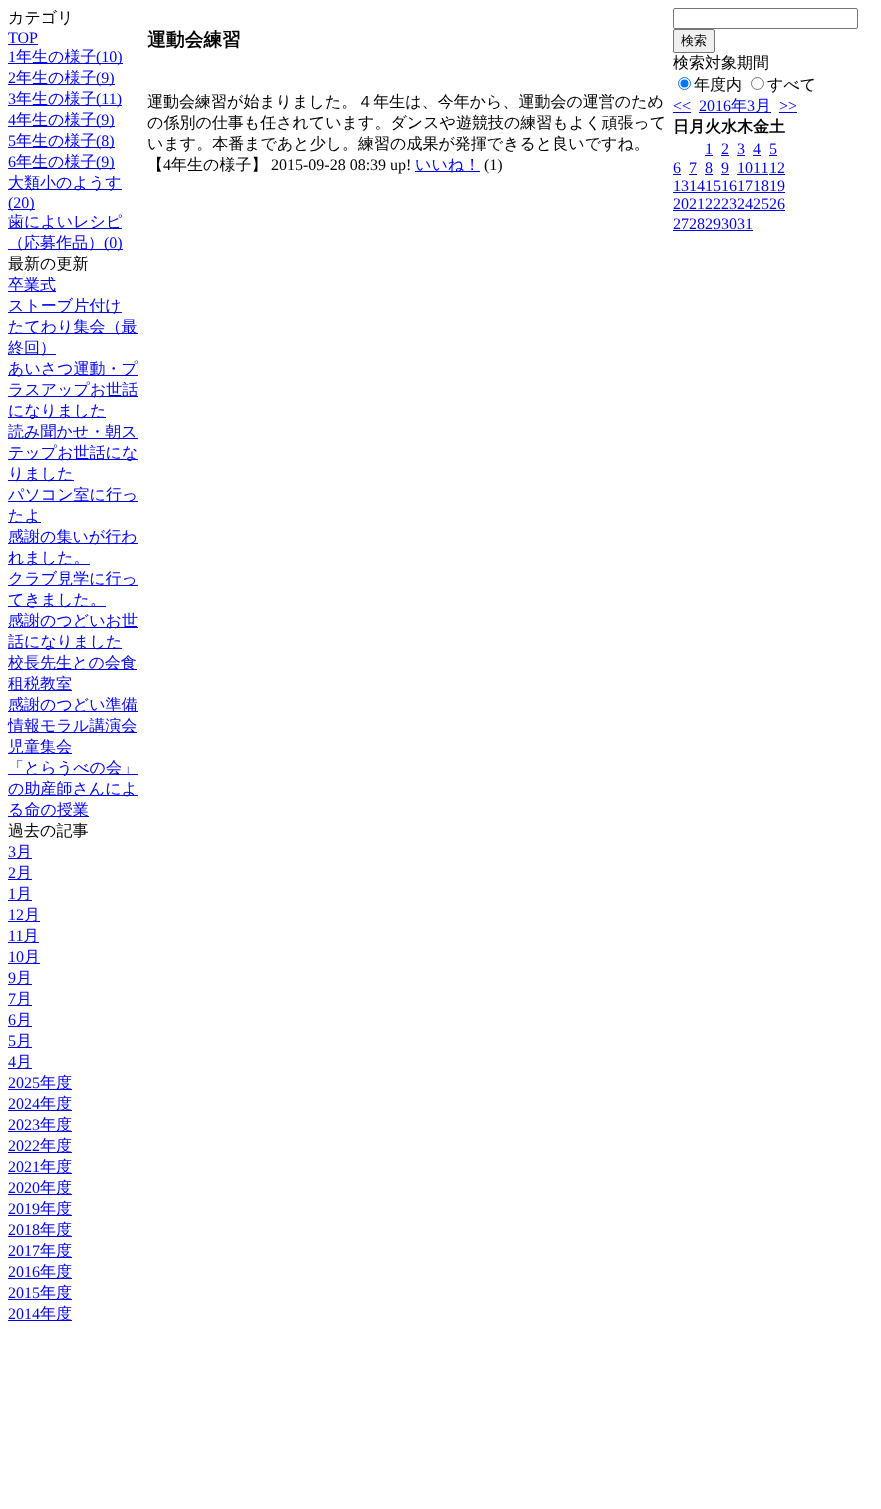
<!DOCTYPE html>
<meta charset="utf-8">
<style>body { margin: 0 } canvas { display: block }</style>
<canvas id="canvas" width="881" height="1509"></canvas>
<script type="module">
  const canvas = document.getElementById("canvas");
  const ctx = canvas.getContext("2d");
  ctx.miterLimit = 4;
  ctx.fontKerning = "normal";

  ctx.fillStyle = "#ffffff";
  ctx.fillRect(0, 0, 881, 1509);
  ctx.font = "500 16px WenQuanYi Zen Hei";
  ctx.fillStyle = "#000000";
  ctx.fillText("カテゴリ", 8, 23);
  ctx.font = "16px Liberation Serif";
  ctx.fillStyle = "#0000ee";
  ctx.fillText("TOP", 8, 43);
  ctx.fillRect(8, 44, 30, 1);
  ctx.fillText("1", 8, 62);
  ctx.fillRect(8, 63, 115, 1);
  ctx.font = "500 16px WenQuanYi Zen Hei";
  ctx.fillText("年生の様子", 16, 62);
  ctx.font = "16px Liberation Serif";
  ctx.fillText("(10)", 96, 62);
  ctx.fillText("2", 8, 83);
  ctx.fillRect(8, 84, 107, 1);
  ctx.font = "500 16px WenQuanYi Zen Hei";
  ctx.fillText("年生の様子", 16, 83);
  ctx.font = "16px Liberation Serif";
  ctx.fillText("(9)", 96, 83);
  ctx.fillText("3", 8, 104);
  ctx.fillRect(8, 105, 114, 1);
  ctx.font = "500 16px WenQuanYi Zen Hei";
  ctx.fillText("年生の様子", 16, 104);
  ctx.font = "16px Liberation Serif";
  ctx.fillText("(11)", 96, 104);
  ctx.fillText("4", 8, 125);
  ctx.fillRect(8, 126, 107, 1);
  ctx.font = "500 16px WenQuanYi Zen Hei";
  ctx.fillText("年生の様子", 16, 125);
  ctx.font = "16px Liberation Serif";
  ctx.fillText("(9)", 96, 125);
  ctx.fillText("5", 8, 146);
  ctx.fillRect(8, 147, 107, 1);
  ctx.font = "500 16px WenQuanYi Zen Hei";
  ctx.fillText("年生の様子", 16, 146);
  ctx.font = "16px Liberation Serif";
  ctx.fillText("(8)", 96, 146);
  ctx.fillText("6", 8, 167);
  ctx.fillRect(8, 168, 107, 1);
  ctx.font = "500 16px WenQuanYi Zen Hei";
  ctx.fillText("年生の様子", 16, 167);
  ctx.font = "16px Liberation Serif";
  ctx.fillText("(9)", 96, 167);
  ctx.fillRect(8, 189, 114, 1);
  ctx.font = "500 16px WenQuanYi Zen Hei";
  ctx.fillText("大類小のようす", 8, 188);
  ctx.fillRect(8, 209, 27, 1);
  ctx.font = "16px Liberation Serif";
  ctx.fillText("(20)", 8, 208);
  ctx.fillRect(8, 228, 114, 1);
  ctx.font = "500 16px WenQuanYi Zen Hei";
  ctx.fillText("歯によいレシピ", 8, 227);
  ctx.fillRect(8, 249, 115, 1);
  ctx.fillText("（応募作品）", 8, 248);
  ctx.font = "16px Liberation Serif";
  ctx.fillText("(0)", 104, 248);
  ctx.font = "500 16px WenQuanYi Zen Hei";
  ctx.fillStyle = "#000000";
  ctx.fillText("最新の更新", 8, 269);
  ctx.fillStyle = "#0000ee";
  ctx.fillRect(8, 291, 48, 1);
  ctx.fillText("卒業式", 8, 290);
  ctx.fillRect(8, 312, 114, 1);
  ctx.fillText("ストーブ片付け", 8, 311);
  ctx.fillRect(8, 333, 130, 1);
  ctx.fillText("たてわり集会（最", 8, 332);
  ctx.fillRect(8, 354, 48, 1);
  ctx.fillText("終回）", 8, 353);
  ctx.fillRect(8, 375, 130, 1);
  ctx.fillText("あいさつ運動・プ", 8, 374);
  ctx.fillRect(8, 396, 130, 1);
  ctx.fillText("ラスアップお世話", 8, 395);
  ctx.fillRect(8, 417, 98, 1);
  ctx.fillText("になりました", 8, 416);
  ctx.fillRect(8, 438, 130, 1);
  ctx.fillText("読み聞かせ・朝ス", 8, 437);
  ctx.fillRect(8, 459, 130, 1);
  ctx.fillText("テップお世話にな", 8, 458);
  ctx.fillRect(8, 480, 66, 1);
  ctx.fillText("りました", 8, 479);
  ctx.fillRect(8, 501, 130, 1);
  ctx.fillText("パソコン室に行っ", 8, 500);
  ctx.fillRect(8, 522, 33, 1);
  ctx.fillText("たよ", 8, 521);
  ctx.fillRect(8, 543, 130, 1);
  ctx.fillText("感謝の集いが行わ", 8, 542);
  ctx.fillRect(8, 564, 82, 1);
  ctx.fillText("れました。", 8, 563);
  ctx.fillRect(8, 585, 130, 1);
  ctx.fillText("クラブ見学に行っ", 8, 584);
  ctx.fillRect(8, 606, 98, 1);
  ctx.fillText("てきました。", 8, 605);
  ctx.fillRect(8, 627, 130, 1);
  ctx.fillText("感謝のつどいお世", 8, 626);
  ctx.fillRect(8, 648, 114, 1);
  ctx.fillText("話になりました", 8, 647);
  ctx.fillRect(8, 669, 129, 1);
  ctx.fillText("校長先生との会食", 8, 668);
  ctx.fillRect(8, 690, 64, 1);
  ctx.fillText("租税教室", 8, 689);
  ctx.fillRect(8, 711, 130, 1);
  ctx.fillText("感謝のつどい準備", 8, 710);
  ctx.fillRect(8, 732, 129, 1);
  ctx.fillText("情報モラル講演会", 8, 731);
  ctx.fillRect(8, 753, 64, 1);
  ctx.fillText("児童集会", 8, 752);
  ctx.fillRect(8, 774, 130, 1);
  ctx.fillText("「とらうべの会」", 8, 773);
  ctx.fillRect(8, 795, 130, 1);
  ctx.fillText("の助産師さんによ", 8, 794);
  ctx.fillRect(8, 816, 81, 1);
  ctx.fillText("る命の授業", 8, 815);
  ctx.fillStyle = "#000000";
  ctx.fillText("過去の記事", 8, 836);
  ctx.font = "16px Liberation Serif";
  ctx.fillStyle = "#0000ee";
  ctx.fillText("3", 8, 857);
  ctx.fillRect(8, 858, 24, 1);
  ctx.font = "500 16px WenQuanYi Zen Hei";
  ctx.fillText("月", 16, 857);
  ctx.font = "16px Liberation Serif";
  ctx.fillText("2", 8, 878);
  ctx.fillRect(8, 879, 24, 1);
  ctx.font = "500 16px WenQuanYi Zen Hei";
  ctx.fillText("月", 16, 878);
  ctx.font = "16px Liberation Serif";
  ctx.fillText("1", 8, 899);
  ctx.fillRect(8, 900, 24, 1);
  ctx.font = "500 16px WenQuanYi Zen Hei";
  ctx.fillText("月", 16, 899);
  ctx.font = "16px Liberation Serif";
  ctx.fillText("12", 8, 920);
  ctx.fillRect(8, 921, 32, 1);
  ctx.font = "500 16px WenQuanYi Zen Hei";
  ctx.fillText("月", 24, 920);
  ctx.font = "16px Liberation Serif";
  ctx.fillText("11", 8, 941);
  ctx.fillRect(8, 942, 31, 1);
  ctx.font = "500 16px WenQuanYi Zen Hei";
  ctx.fillText("月", 23, 941);
  ctx.font = "16px Liberation Serif";
  ctx.fillText("10", 8, 962);
  ctx.fillRect(8, 963, 32, 1);
  ctx.font = "500 16px WenQuanYi Zen Hei";
  ctx.fillText("月", 24, 962);
  ctx.font = "16px Liberation Serif";
  ctx.fillText("9", 8, 983);
  ctx.fillRect(8, 984, 24, 1);
  ctx.font = "500 16px WenQuanYi Zen Hei";
  ctx.fillText("月", 16, 983);
  ctx.font = "16px Liberation Serif";
  ctx.fillText("7", 8, 1004);
  ctx.fillRect(8, 1005, 24, 1);
  ctx.font = "500 16px WenQuanYi Zen Hei";
  ctx.fillText("月", 16, 1004);
  ctx.font = "16px Liberation Serif";
  ctx.fillText("6", 8, 1025);
  ctx.fillRect(8, 1026, 24, 1);
  ctx.font = "500 16px WenQuanYi Zen Hei";
  ctx.fillText("月", 16, 1025);
  ctx.font = "16px Liberation Serif";
  ctx.fillText("5", 8, 1046);
  ctx.fillRect(8, 1047, 24, 1);
  ctx.font = "500 16px WenQuanYi Zen Hei";
  ctx.fillText("月", 16, 1046);
  ctx.font = "16px Liberation Serif";
  ctx.fillText("4", 8, 1067);
  ctx.fillRect(8, 1068, 24, 1);
  ctx.font = "500 16px WenQuanYi Zen Hei";
  ctx.fillText("月", 16, 1067);
  ctx.font = "16px Liberation Serif";
  ctx.fillText("2025", 8, 1088);
  ctx.fillRect(8, 1089, 64, 1);
  ctx.font = "500 16px WenQuanYi Zen Hei";
  ctx.fillText("年度", 40, 1088);
  ctx.font = "16px Liberation Serif";
  ctx.fillText("2024", 8, 1109);
  ctx.fillRect(8, 1110, 64, 1);
  ctx.font = "500 16px WenQuanYi Zen Hei";
  ctx.fillText("年度", 40, 1109);
  ctx.font = "16px Liberation Serif";
  ctx.fillText("2023", 8, 1130);
  ctx.fillRect(8, 1131, 64, 1);
  ctx.font = "500 16px WenQuanYi Zen Hei";
  ctx.fillText("年度", 40, 1130);
  ctx.font = "16px Liberation Serif";
  ctx.fillText("2022", 8, 1151);
  ctx.fillRect(8, 1152, 64, 1);
  ctx.font = "500 16px WenQuanYi Zen Hei";
  ctx.fillText("年度", 40, 1151);
  ctx.font = "16px Liberation Serif";
  ctx.fillText("2021", 8, 1172);
  ctx.fillRect(8, 1173, 64, 1);
  ctx.font = "500 16px WenQuanYi Zen Hei";
  ctx.fillText("年度", 40, 1172);
  ctx.font = "16px Liberation Serif";
  ctx.fillText("2020", 8, 1193);
  ctx.fillRect(8, 1194, 64, 1);
  ctx.font = "500 16px WenQuanYi Zen Hei";
  ctx.fillText("年度", 40, 1193);
  ctx.font = "16px Liberation Serif";
  ctx.fillText("2019", 8, 1214);
  ctx.fillRect(8, 1215, 64, 1);
  ctx.font = "500 16px WenQuanYi Zen Hei";
  ctx.fillText("年度", 40, 1214);
  ctx.font = "16px Liberation Serif";
  ctx.fillText("2018", 8, 1235);
  ctx.fillRect(8, 1236, 64, 1);
  ctx.font = "500 16px WenQuanYi Zen Hei";
  ctx.fillText("年度", 40, 1235);
  ctx.font = "16px Liberation Serif";
  ctx.fillText("2017", 8, 1256);
  ctx.fillRect(8, 1257, 64, 1);
  ctx.font = "500 16px WenQuanYi Zen Hei";
  ctx.fillText("年度", 40, 1256);
  ctx.font = "16px Liberation Serif";
  ctx.fillText("2016", 8, 1277);
  ctx.fillRect(8, 1278, 64, 1);
  ctx.font = "500 16px WenQuanYi Zen Hei";
  ctx.fillText("年度", 40, 1277);
  ctx.font = "16px Liberation Serif";
  ctx.fillText("2015", 8, 1298);
  ctx.fillRect(8, 1299, 64, 1);
  ctx.font = "500 16px WenQuanYi Zen Hei";
  ctx.fillText("年度", 40, 1298);
  ctx.font = "16px Liberation Serif";
  ctx.fillText("2014", 8, 1319);
  ctx.fillRect(8, 1320, 64, 1);
  ctx.font = "500 16px WenQuanYi Zen Hei";
  ctx.fillText("年度", 40, 1319);
  ctx.font = "bold 18.75px WenQuanYi Zen Hei";
  ctx.fillStyle = "#000000";
  ctx.fillText("運動会練習", 147, 46);
  ctx.font = "500 16px WenQuanYi Zen Hei";
  ctx.fillText("運動会練習が始まりました。４年生は、今年から、運動会の運営のため", 147, 107);
  ctx.fillText("の係別の仕事も任されています。ダンスや遊競技の練習もよく頑張って", 147, 128);
  ctx.fillText("います。本番まであと少し。練習の成果が発揮できると良いですね。", 147, 149);
  ctx.fillText("【", 147, 170);
  ctx.font = "16px Liberation Serif";
  ctx.fillText("4", 163, 170);
  ctx.font = "500 16px WenQuanYi Zen Hei";
  ctx.fillText("年生の様子】", 171, 170);
  ctx.font = "16px Liberation Serif";
  ctx.fillText("2015-09-28 08:39 up!", 271, 170);
  ctx.fillStyle = "#0000ee";
  ctx.fillRect(415, 171, 65, 1);
  ctx.font = "500 16px WenQuanYi Zen Hei";
  ctx.fillText("いいね！", 415, 170);
  ctx.font = "16px Liberation Serif";
  ctx.fillStyle = "#000000";
  ctx.fillText("(1)", 484, 170);
  ctx.beginPath();
  ctx.roundRect(673.5, 8.5, 184, 20, 1.5);
  ctx.strokeStyle = "#767676";
  ctx.stroke();
  ctx.fillStyle = "#efefef";
  ctx.beginPath();
  ctx.roundRect(673.5, 29.5, 41, 23, 1.5);
  ctx.fill();
  ctx.stroke();
  ctx.font = "500 13px WenQuanYi Zen Hei";
  ctx.fillStyle = "#000000";
  ctx.fillText("検索", 681, 45);
  ctx.font = "500 16px WenQuanYi Zen Hei";
  ctx.fillText("検索対象期間", 673, 68);
  ctx.beginPath();
  ctx.arc(684.5, 83.5, 6, 0, Math.PI * 2);
  ctx.strokeStyle = "#0075ff";
  ctx.stroke();
  ctx.fillStyle = "#0075ff";
  ctx.beginPath();
  ctx.arc(684.5, 83.5, 4, 0, Math.PI * 2);
  ctx.fill();
  ctx.fillStyle = "#000000";
  ctx.fillText("年度内", 694, 90);
  ctx.beginPath();
  ctx.arc(757.5, 83.5, 6, 0, Math.PI * 2);
  ctx.strokeStyle = "#767676";
  ctx.stroke();
  ctx.fillText("すべて", 767, 90);
  ctx.font = "16px Liberation Serif";
  ctx.fillStyle = "#0000ee";
  ctx.fillText("<<", 673, 111);
  ctx.fillRect(673, 112, 18, 1);
  ctx.fillText("2016", 699, 111);
  ctx.fillRect(699, 112, 72, 1);
  ctx.font = "500 16px WenQuanYi Zen Hei";
  ctx.fillText("年", 731, 111);
  ctx.font = "16px Liberation Serif";
  ctx.fillText("3", 747, 111);
  ctx.font = "500 16px WenQuanYi Zen Hei";
  ctx.fillText("月", 755, 111);
  ctx.font = "16px Liberation Serif";
  ctx.fillText(">>", 779, 111);
  ctx.fillRect(779, 112, 18, 1);
  ctx.font = "bold 16px WenQuanYi Zen Hei";
  ctx.fillStyle = "#000000";
  ctx.fillText("日月火水木金土", 673, 132);
  ctx.font = "16px Liberation Serif";
  ctx.fillStyle = "#0000ee";
  ctx.fillText("1", 705, 154);
  ctx.fillRect(705, 155, 8, 1);
  ctx.fillText("2", 721, 154);
  ctx.fillRect(721, 155, 8, 1);
  ctx.fillText("3", 737, 154);
  ctx.fillRect(737, 155, 8, 1);
  ctx.fillText("4", 753, 154);
  ctx.fillRect(753, 155, 8, 1);
  ctx.fillText("5", 769, 154);
  ctx.fillRect(769, 155, 8, 1);
  ctx.fillText("6", 673, 173);
  ctx.fillRect(673, 174, 8, 1);
  ctx.fillText("7", 689, 173);
  ctx.fillRect(689, 174, 8, 1);
  ctx.fillText("8", 705, 173);
  ctx.fillRect(705, 174, 8, 1);
  ctx.fillText("9", 721, 173);
  ctx.fillRect(721, 174, 8, 1);
  ctx.fillText("1011", 737, 173);
  ctx.fillRect(737, 174, 31, 1);
  ctx.fillText("12", 769, 173);
  ctx.fillRect(769, 174, 16, 1);
  ctx.fillText("13141516171819", 673, 191);
  ctx.fillRect(673, 192, 112, 1);
  ctx.fillText("20212223242526", 673, 209);
  ctx.fillRect(673, 210, 112, 1);
  ctx.fillText("2728293031", 673, 229);
  ctx.fillRect(673, 230, 80, 1);
</script>
